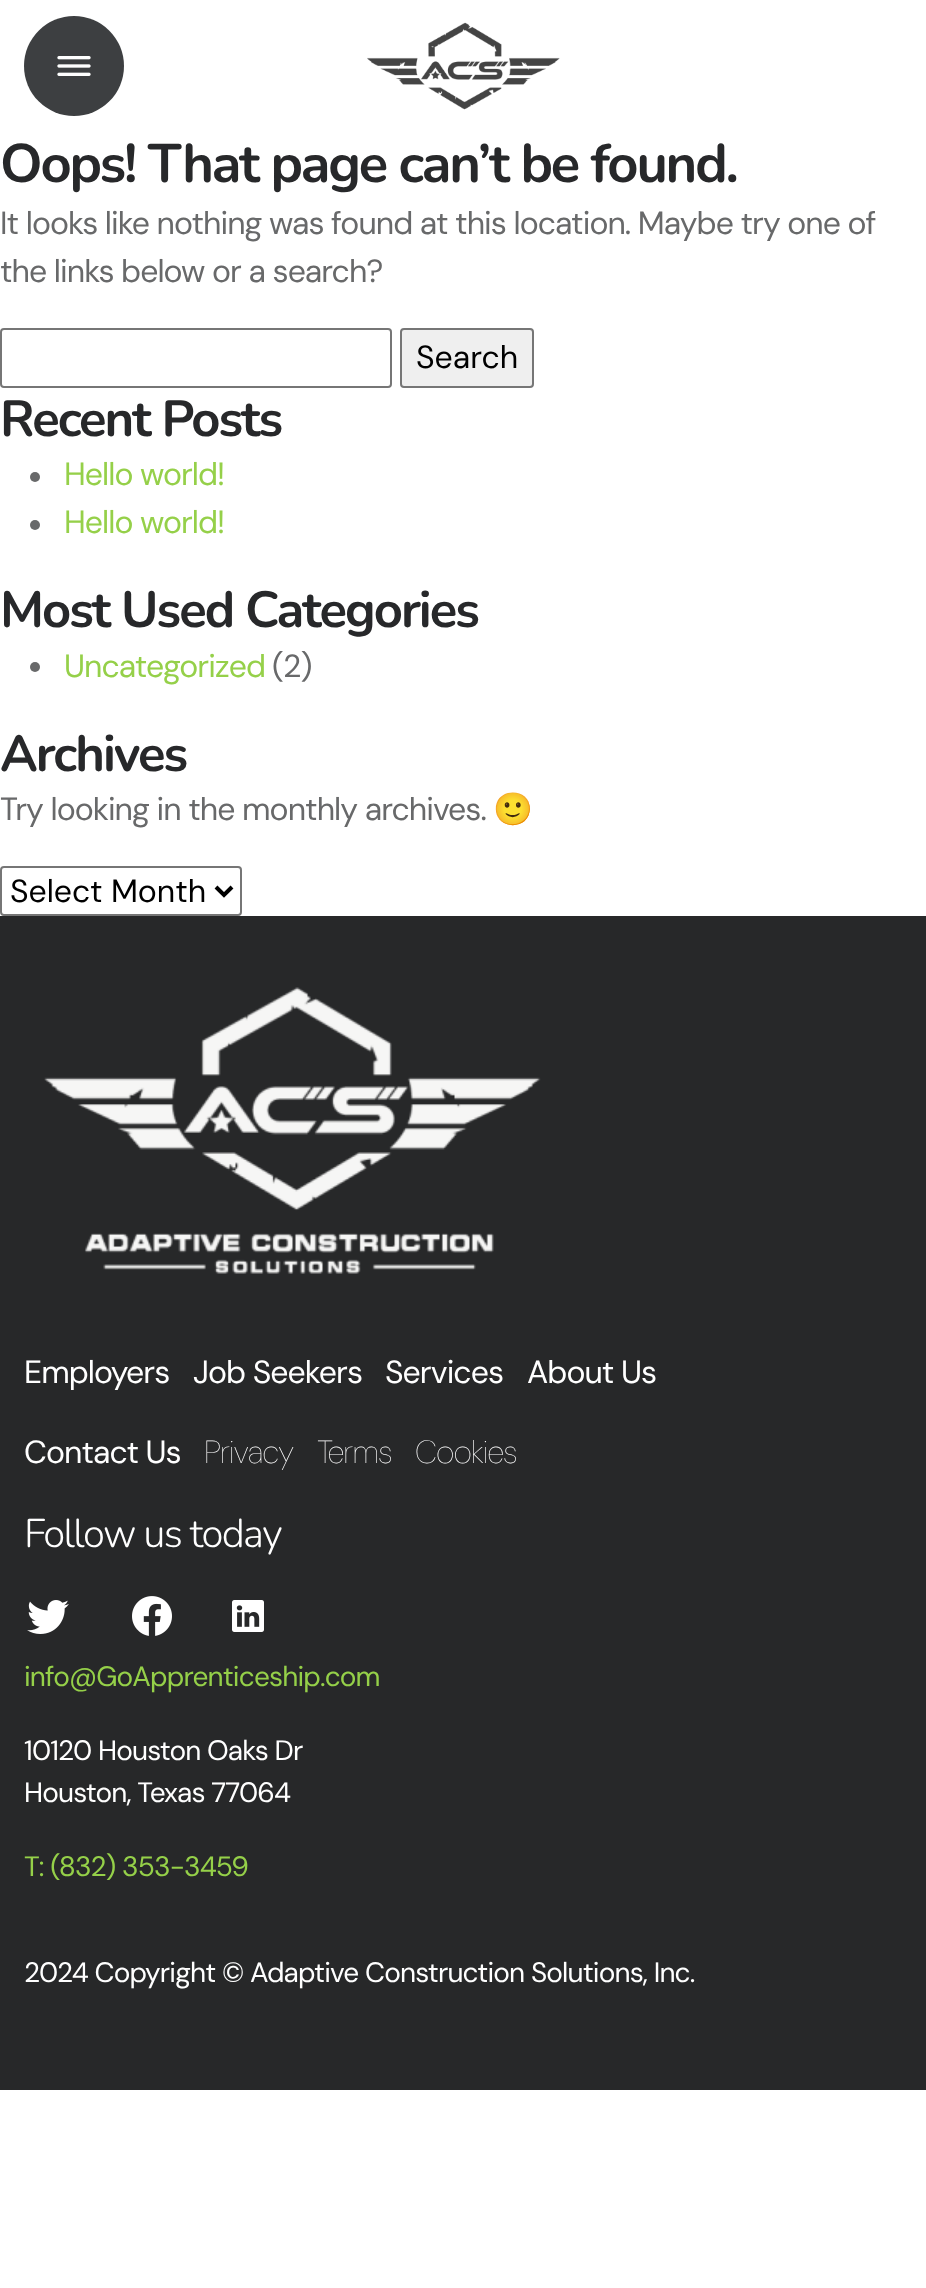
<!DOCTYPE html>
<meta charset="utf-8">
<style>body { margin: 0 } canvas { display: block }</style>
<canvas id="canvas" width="926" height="2288"></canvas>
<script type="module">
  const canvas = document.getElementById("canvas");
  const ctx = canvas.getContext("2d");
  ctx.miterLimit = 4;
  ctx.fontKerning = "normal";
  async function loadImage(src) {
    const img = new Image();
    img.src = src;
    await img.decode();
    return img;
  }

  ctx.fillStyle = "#ffffff";
  ctx.fillRect(0, 0, 926, 2288);
  ctx.fillStyle = "#3d3f41";
  ctx.beginPath();
  ctx.arc(74, 66, 50, 0, Math.PI * 2);
  ctx.fill();
  ctx.drawImage(await loadImage("img1.png"), 57, 56, 34, 20);
  ctx.drawImage(await loadImage("img2.png"), 367, 22, 193, 88);
  ctx.letterSpacing = "-2.2px";
  ctx.font = "bold 54.25px Nunito";
  ctx.fillStyle = "#27282a";
  ctx.fillText("Oops! That page can’t be found.", 0, 182);
  ctx.letterSpacing = "-0.95px";
  ctx.font = "32px DM Sans";
  ctx.fillStyle = "#68696a";
  ctx.fillText("It looks like nothing was found at this location. Maybe try one of", 0, 234);
  ctx.fillText("the links below or a search?", 0, 282);
  ctx.beginPath();
  ctx.roundRect(1, 329, 390, 58, 3);
  ctx.strokeStyle = "#767676";
  ctx.lineWidth = 2;
  ctx.stroke();
  ctx.fillStyle = "#efefef";
  ctx.beginPath();
  ctx.roundRect(401, 329, 132, 58, 3);
  ctx.fill();
  ctx.stroke();
  ctx.letterSpacing = "0px";
  ctx.fillStyle = "#000000";
  ctx.fillText("Search", 416, 368);
  ctx.letterSpacing = "-2px";
  ctx.font = "bold 50.75px Nunito";
  ctx.fillStyle = "#27282a";
  ctx.fillText("Recent Posts", 0, 436);
  ctx.fillStyle = "#68696a";
  ctx.beginPath();
  ctx.arc(35, 477, 5, 0, Math.PI * 2);
  ctx.fill();
  ctx.letterSpacing = "-0.95px";
  ctx.font = "32px DM Sans";
  ctx.fillStyle = "#95d049";
  ctx.fillText("Hello world!", 64, 485);
  ctx.fillStyle = "#68696a";
  ctx.beginPath();
  ctx.arc(35, 525, 5, 0, Math.PI * 2);
  ctx.fill();
  ctx.fillStyle = "#95d049";
  ctx.fillText("Hello world!", 64, 533);
  ctx.letterSpacing = "-2px";
  ctx.font = "bold 50.75px Nunito";
  ctx.fillStyle = "#27282a";
  ctx.fillText("Most Used Categories", 0, 627);
  ctx.fillStyle = "#68696a";
  ctx.beginPath();
  ctx.arc(35, 667, 5, 0, Math.PI * 2);
  ctx.fill();
  ctx.letterSpacing = "-0.95px";
  ctx.font = "32px DM Sans";
  ctx.fillStyle = "#95d049";
  ctx.fillText("Uncategorized", 64, 677);
  ctx.fillStyle = "#68696a";
  ctx.fillText("(2)", 272, 677);
  ctx.letterSpacing = "-2px";
  ctx.font = "bold 50.75px Nunito";
  ctx.fillStyle = "#27282a";
  ctx.fillText("Archives", 0, 771);
  ctx.letterSpacing = "-0.95px";
  ctx.font = "32px DM Sans";
  ctx.fillStyle = "#68696a";
  ctx.fillText("Try looking in the monthly archives.", 0, 820);
  ctx.font = "32px Noto Color Emoji";
  ctx.fillText("🙂", 493, 820);
  ctx.beginPath();
  ctx.roundRect(1, 867, 240, 48, 3);
  ctx.stroke();
  ctx.beginPath();
  ctx.moveTo(216, 887);
  ctx.lineTo(224, 895);
  ctx.lineTo(232, 887);
  ctx.strokeStyle = "#000000";
  ctx.lineWidth = 4;
  ctx.stroke();
  ctx.letterSpacing = "0px";
  ctx.font = "32px DM Sans";
  ctx.fillStyle = "#000000";
  ctx.fillText("Select Month", 10, 902);
  ctx.fillStyle = "#272829";
  ctx.fillRect(0, 916, 926, 1174);
  ctx.drawImage(await loadImage("img3.png"), 44, 987, 497, 287);
  ctx.letterSpacing = "-0.95px";
  ctx.fillStyle = "#ffffff";
  ctx.fillText("Employers", 24, 1383);
  ctx.fillText("Job Seekers", 193, 1383);
  ctx.fillText("Services", 385, 1383);
  ctx.fillText("About Us", 527, 1383);
  ctx.fillText("Contact Us", 24, 1463);
  ctx.font = "100 32px DM Sans";
  ctx.fillText("Privacy", 204, 1463);
  ctx.fillText("Terms", 317, 1463);
  ctx.fillText("Cookies", 415, 1463);
  ctx.letterSpacing = "-1.6px";
  ctx.font = "300 40px Nunito";
  ctx.fillText("Follow us today", 24, 1547);
  ctx.drawImage(await loadImage("img4.png"), 27, 1600, 42, 34);
  ctx.drawImage(await loadImage("img5.png"), 132, 1596, 40, 40);
  ctx.drawImage(await loadImage("img6.png"), 232, 1600, 32, 32);
  ctx.letterSpacing = "-0.85px";
  ctx.font = "28px DM Sans";
  ctx.fillStyle = "#95d049";
  ctx.fillText("info@GoApprenticeship.com", 24, 1686);
  ctx.fillStyle = "#ffffff";
  ctx.fillText("10120 Houston Oaks Dr", 24, 1760);
  ctx.fillText("Houston, Texas 77064", 24, 1802);
  ctx.fillStyle = "#95d049";
  ctx.fillText("T: (832) 353-3459", 24, 1876);
  ctx.fillStyle = "#ffffff";
  ctx.fillText("2024 Copyright © Adaptive Construction Solutions, Inc.", 24, 1982);
</script>
